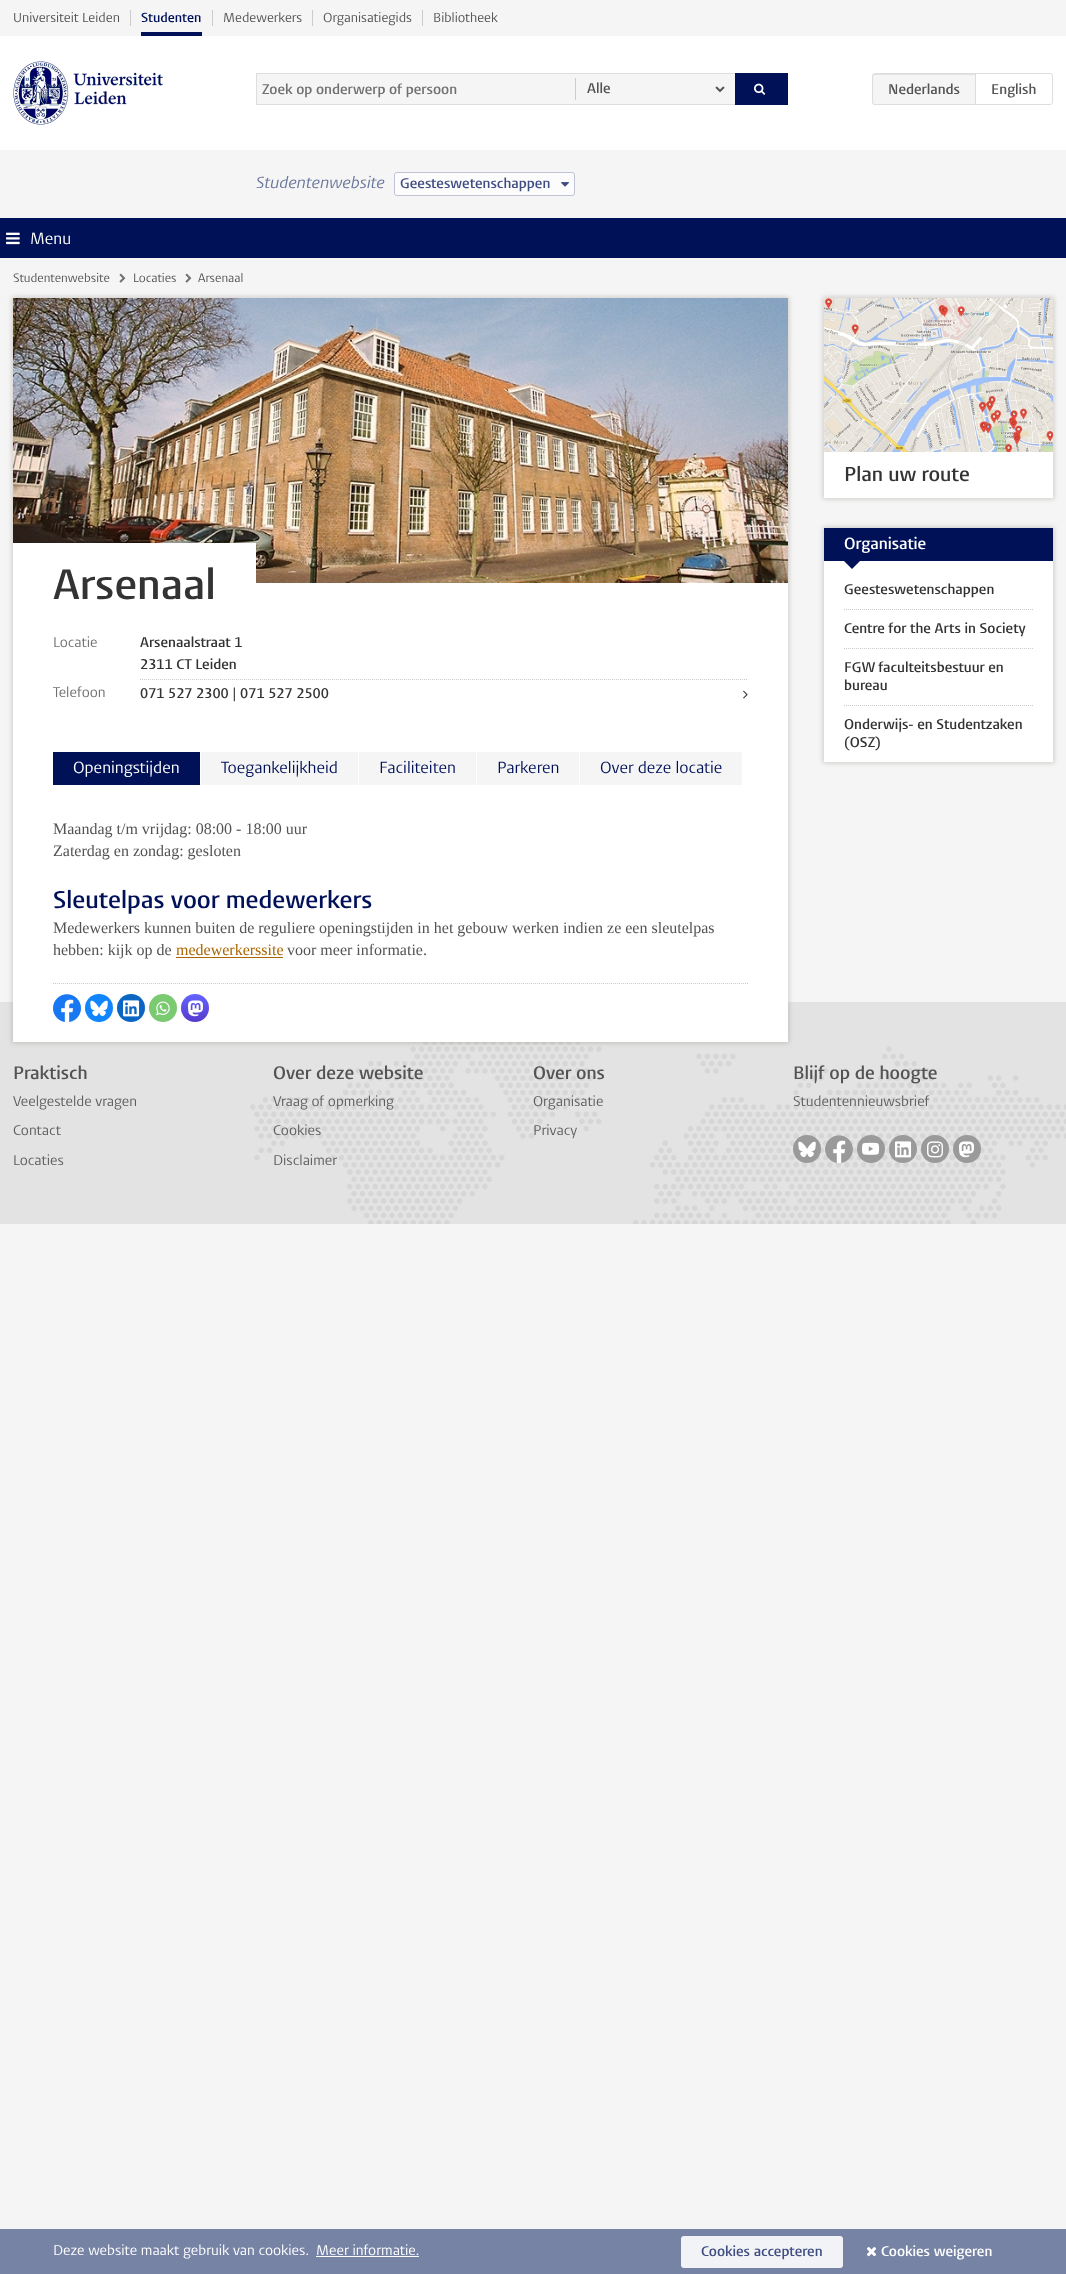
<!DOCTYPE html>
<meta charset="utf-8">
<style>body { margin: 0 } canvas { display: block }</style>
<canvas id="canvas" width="1066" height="2274"></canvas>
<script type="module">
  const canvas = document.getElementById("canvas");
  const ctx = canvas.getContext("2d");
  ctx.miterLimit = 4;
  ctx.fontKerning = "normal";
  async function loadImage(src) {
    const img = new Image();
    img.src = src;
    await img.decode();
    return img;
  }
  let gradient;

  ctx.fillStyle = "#f5f5f5";
  ctx.fillRect(0, 0, 1066, 2274);
  ctx.fillStyle = "#ffffff";
  ctx.fillRect(0, 36, 1066, 114);
  ctx.fillStyle = "#cccccc";
  ctx.fillRect(130, 10, 1, 16);
  ctx.font = "13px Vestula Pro";
  ctx.fillStyle = "#535353";
  ctx.fillText("Universiteit Leiden", 13, 22);
  ctx.fillStyle = "#cccccc";
  ctx.fillRect(212, 10, 1, 16);
  ctx.font = "600 13px Vestula Pro";
  ctx.fillStyle = "#001158";
  ctx.fillText("Studenten", 141, 22);
  ctx.fillRect(141, 32, 61, 4);
  ctx.fillStyle = "#cccccc";
  ctx.fillRect(312, 10, 1, 16);
  ctx.font = "13px Vestula Pro";
  ctx.fillStyle = "#535353";
  ctx.fillText("Medewerkers", 223, 22);
  ctx.fillStyle = "#cccccc";
  ctx.fillRect(422, 10, 1, 16);
  ctx.fillStyle = "#535353";
  ctx.fillText("Organisatiegids", 323, 22);
  ctx.fillText("Bibliotheek", 433, 22);
  ctx.drawImage(await loadImage("img1.png"), 13, 61, 150, 64);
  ctx.fillStyle = "#f5f5f5";
  ctx.fillRect(257, 74, 478, 30);
  ctx.fillStyle = "#dddddd";
  ctx.fillRect(256, 73, 479, 1);
  ctx.fillRect(256, 104, 479, 1);
  ctx.fillRect(256, 73, 1, 32);
  ctx.font = "600 14px Vestula Pro";
  ctx.fillStyle = "#707070";
  ctx.fillText("Zoek op onderwerp of persoon", 262, 94);
  ctx.fillStyle = "#cccccc";
  ctx.fillRect(575, 78, 1, 22);
  ctx.fillStyle = "#535353";
  ctx.fillText("Alle", 587, 93);
  ctx.drawImage(await loadImage("img2.png"), 715, 86, 10, 7);
  ctx.fillStyle = "#001158";
  ctx.fillRect(735, 73, 53, 32);
  ctx.drawImage(await loadImage("img3.png"), 754, 83, 12, 12);
  ctx.fillStyle = "#f5f5f5";
  ctx.beginPath();
  ctx.roundRect(872, 73, 104, 32, [3, 0, 0, 3]);
  ctx.fill();
  ctx.fillStyle = "#e1e1e1";
  ctx.beginPath();
  ctx.moveTo(875, 75);
  ctx.lineTo(975, 75);
  ctx.lineTo(975, 74);
  ctx.lineTo(875, 74);
  ctx.bezierCurveTo(873, 74, 873, 76, 873, 77);
  ctx.bezierCurveTo(873, 76, 874, 75, 875, 75);
  ctx.closePath();
  ctx.fill();
  ctx.beginPath();
  ctx.roundRect(872.5, 73.5, 103, 31, [2.5, 0, 0, 2.5]);
  ctx.strokeStyle = "#dddddd";
  ctx.stroke();
  ctx.fillStyle = "#535353";
  ctx.fillText("Nederlands", 888, 94);
  ctx.fillStyle = "#ffffff";
  ctx.beginPath();
  ctx.roundRect(975.5, 73.5, 77, 31, [0, 2.5, 2.5, 0]);
  ctx.fill();
  ctx.stroke();
  ctx.fillStyle = "#535353";
  ctx.fillText("English", 991, 94);
  ctx.font = "italic 16px Vestula Pro";
  ctx.fillStyle = "#68769c";
  ctx.fillText("Studentenwebsite", 256, 188);
  ctx.fillStyle = "#fcfcfc";
  ctx.beginPath();
  ctx.roundRect(394.5, 172.5, 180, 23, 2.5);
  ctx.fill();
  ctx.strokeStyle = "#bfc3d5";
  ctx.stroke();
  ctx.font = "600 14px Vestula Pro";
  ctx.fillStyle = "#404d82";
  ctx.fillText("Geesteswetenschappen", 400, 188);
  ctx.drawImage(await loadImage("img4.png"), 561, 182, 8, 5);
  ctx.fillStyle = "#001158";
  ctx.fillRect(0, 218, 1066, 40);
  ctx.drawImage(await loadImage("img5.png"), 6, 232, 14, 13);
  ctx.font = "16px Vestula Pro";
  ctx.fillStyle = "#ffffff";
  ctx.fillText("Menu", 30, 244);
  ctx.font = "12px Vestula Pro";
  ctx.fillStyle = "#535353";
  ctx.fillText("Studentenwebsite", 13, 282);
  ctx.drawImage(await loadImage("img6.png"), 119, 273, 7, 10);
  ctx.fillText("Locaties", 133, 282);
  ctx.drawImage(await loadImage("img6.png"), 185, 273, 7, 10);
  ctx.fillText("Arsenaal", 198, 282);
  ctx.fillStyle = "#e3e3e3";
  ctx.fillRect(0, 1002, 1066, 222);
  ctx.drawImage(await loadImage("img15.png"), 250, 1042, 816, 182);
  ctx.fillStyle = "rgba(120, 110, 100, 0.3)";
  ctx.filter = "blur(2.5px)";
  ctx.beginPath();
  ctx.rect(12, 297, 777, 746);
  ctx.fill();
  ctx.filter = "none";
  ctx.fillStyle = "#ffffff";
  ctx.fillRect(13, 583, 775, 459);
  ctx.drawImage(await loadImage("img7.png"), 13, 298, 775, 285);
  ctx.fillRect(13, 543, 243, 40);
  ctx.font = "600 42px Vestula Pro";
  ctx.fillStyle = "#333333";
  ctx.fillText("Arsenaal", 53, 599);
  ctx.font = "14px Vestula Pro";
  ctx.fillStyle = "#707070";
  ctx.fillText("Locatie", 53, 647);
  ctx.font = "600 14px Vestula Pro";
  ctx.fillStyle = "#333333";
  ctx.fillText("Arsenaalstraat 1", 140, 647);
  ctx.fillText("2311 CT Leiden", 140, 669);
  ctx.font = "14px Vestula Pro";
  ctx.fillStyle = "#707070";
  ctx.fillText("Telefoon", 53, 697);
  ctx.beginPath();
  ctx.moveTo(140, 679.5);
  ctx.lineTo(748, 679.5);
  ctx.strokeStyle = "#cccccc";
  ctx.setLineDash([1, 1]);
  ctx.stroke();
  ctx.font = "600 14px Vestula Pro";
  ctx.fillStyle = "#333333";
  ctx.fillText("071 527 2300 | 071 527 2500", 140, 698);
  ctx.drawImage(await loadImage("img8.png"), 743, 690, 5, 9);
  ctx.fillStyle = "#001158";
  ctx.fillRect(53, 752, 147, 33);
  ctx.font = "16px Vestula Pro";
  ctx.fillStyle = "#ffffff";
  ctx.fillText("Openingstijden", 73, 773);
  ctx.fillStyle = "#f5f5f5";
  ctx.fillRect(201, 752, 157, 33);
  ctx.fillStyle = "#001158";
  ctx.fillText("Toegankelijkheid", 221, 773);
  ctx.fillStyle = "#f5f5f5";
  ctx.fillRect(359, 752, 117, 33);
  ctx.fillStyle = "#001158";
  ctx.fillText("Faciliteiten", 379, 773);
  ctx.fillStyle = "#f5f5f5";
  ctx.fillRect(477, 752, 102, 33);
  ctx.fillStyle = "#001158";
  ctx.fillText("Parkeren", 497, 773);
  ctx.fillStyle = "#f5f5f5";
  ctx.fillRect(580, 752, 162, 33);
  ctx.fillStyle = "#001158";
  ctx.fillText("Over deze locatie", 600, 773);
  ctx.font = "16px Liberation Serif";
  ctx.fillStyle = "#535353";
  ctx.fillText("Maandag t/m vrijdag: 08:00 - 18:00 uur", 53, 834);
  ctx.fillText("Zaterdag en zondag: gesloten", 53, 856);
  ctx.font = "600 24px Vestula Pro";
  ctx.fillStyle = "#001158";
  ctx.fillText("Sleutelpas voor medewerkers", 53, 908);
  ctx.font = "16px Liberation Serif";
  ctx.fillStyle = "#535353";
  ctx.fillText("Medewerkers kunnen buiten de reguliere openingstijden in het gebouw werken indien ze een sleutelpas", 53, 933);
  ctx.fillText("hebben: kijk op de", 53, 955);
  ctx.fillStyle = "#aa6600";
  ctx.fillText("medewerkerssite", 176, 955);
  ctx.fillRect(176, 957, 107, 1);
  ctx.fillStyle = "#535353";
  ctx.fillText("voor meer informatie.", 287, 955);
  ctx.beginPath();
  ctx.moveTo(53, 983.5);
  ctx.lineTo(748, 983.5);
  ctx.stroke();
  ctx.drawImage(await loadImage("img9.png"), 53, 994, 28, 28);
  ctx.fillStyle = "#1185fe";
  ctx.beginPath();
  ctx.arc(99, 1008, 14, 0, Math.PI * 2);
  ctx.fill();
  ctx.drawImage(await loadImage("img10.png"), 90, 1000, 18, 17);
  ctx.fillStyle = "#0a66c2";
  ctx.beginPath();
  ctx.arc(131, 1008, 14, 0, Math.PI * 2);
  ctx.fill();
  ctx.drawImage(await loadImage("img11.png"), 123, 1000, 17, 17);
  ctx.fillStyle = "#79ca70";
  ctx.beginPath();
  ctx.arc(163, 1008, 14, 0, Math.PI * 2);
  ctx.fill();
  ctx.drawImage(await loadImage("img12.png"), 156, 1001, 14, 15);
  gradient = ctx.createLinearGradient(195, 994, 195, 1022);
  gradient.addColorStop(0, "#6364ff");
  gradient.addColorStop(1, "#563acc");
  ctx.fillStyle = gradient;
  ctx.beginPath();
  ctx.arc(195, 1008, 14, 0, Math.PI * 2);
  ctx.fill();
  ctx.drawImage(await loadImage("img13.png"), 188, 1000, 15, 17);
  ctx.fillStyle = "rgba(120, 110, 100, 0.3)";
  ctx.filter = "blur(2.5px)";
  ctx.beginPath();
  ctx.rect(823, 297, 231, 202);
  ctx.fill();
  ctx.filter = "none";
  ctx.fillStyle = "#ffffff";
  ctx.fillRect(824, 452, 229, 46);
  ctx.drawImage(await loadImage("img14.png"), 824, 298, 229, 154);
  ctx.font = "600 20px Vestula Pro";
  ctx.fillStyle = "#333333";
  ctx.fillText("Plan uw route", 844, 481);
  ctx.fillStyle = "rgba(120, 110, 100, 0.3)";
  ctx.filter = "blur(2.5px)";
  ctx.beginPath();
  ctx.rect(823, 527, 231, 236);
  ctx.fill();
  ctx.filter = "none";
  ctx.fillStyle = "#ffffff";
  ctx.fillRect(824, 561, 229, 201);
  ctx.fillStyle = "#001158";
  ctx.fillRect(824, 528, 229, 33);
  ctx.font = "600 16px Vestula Pro";
  ctx.fillStyle = "#ffffff";
  ctx.fillText("Organisatie", 844, 549);
  ctx.fillStyle = "#001158";
  ctx.beginPath();
  ctx.moveTo(844, 561);
  ctx.lineTo(860, 561);
  ctx.lineTo(852, 569);
  ctx.closePath();
  ctx.fill();
  ctx.font = "600 14px Vestula Pro";
  ctx.fillStyle = "#333333";
  ctx.fillText("Geesteswetenschappen", 844, 594);
  ctx.beginPath();
  ctx.moveTo(844, 609.5);
  ctx.lineTo(1033, 609.5);
  ctx.stroke();
  ctx.fillText("Centre for the Arts in Society", 844, 633);
  ctx.beginPath();
  ctx.moveTo(844, 648.5);
  ctx.lineTo(1033, 648.5);
  ctx.stroke();
  ctx.fillText("FGW faculteitsbestuur en", 844, 672);
  ctx.fillText("bureau", 844, 690);
  ctx.beginPath();
  ctx.moveTo(844, 705.5);
  ctx.lineTo(1033, 705.5);
  ctx.stroke();
  ctx.fillText("Onderwijs- en Studentzaken", 844, 729);
  ctx.fillText("(OSZ)", 844, 747);
  ctx.font = "600 18px Vestula Pro";
  ctx.fillStyle = "#535353";
  ctx.fillText("Praktisch", 13, 1079);
  ctx.font = "14px Vestula Pro";
  ctx.fillStyle = "#5e5e5e";
  ctx.fillText("Veelgestelde vragen", 13, 1106);
  ctx.fillText("Contact", 13, 1135);
  ctx.fillText("Locaties", 13, 1165);
  ctx.font = "600 18px Vestula Pro";
  ctx.fillStyle = "#535353";
  ctx.fillText("Over deze website", 273, 1079);
  ctx.font = "14px Vestula Pro";
  ctx.fillStyle = "#5e5e5e";
  ctx.fillText("Vraag of opmerking", 273, 1106);
  ctx.fillText("Cookies", 273, 1135);
  ctx.fillText("Disclaimer", 273, 1165);
  ctx.font = "600 18px Vestula Pro";
  ctx.fillStyle = "#535353";
  ctx.fillText("Over ons", 533, 1079);
  ctx.font = "14px Vestula Pro";
  ctx.fillStyle = "#5e5e5e";
  ctx.fillText("Organisatie", 533, 1106);
  ctx.fillText("Privacy", 533, 1135);
  ctx.font = "600 18px Vestula Pro";
  ctx.fillStyle = "#535353";
  ctx.fillText("Blijf op de hoogte", 793, 1079);
  ctx.font = "14px Vestula Pro";
  ctx.fillStyle = "#5e5e5e";
  ctx.fillText("Studentennieuwsbrief", 793, 1106);
  ctx.fillStyle = "#9a9a9a";
  ctx.beginPath();
  ctx.arc(807, 1149, 14, 0, Math.PI * 2);
  ctx.fill();
  ctx.drawImage(await loadImage("img16.png"), 798, 1141, 18, 17);
  ctx.fillStyle = "#ffffff";
  ctx.beginPath();
  ctx.arc(839, 1149, 14, 0, Math.PI * 2);
  ctx.fill();
  ctx.drawImage(await loadImage("img17.png"), 825, 1135, 28, 28);
  ctx.fillStyle = "#9a9a9a";
  ctx.beginPath();
  ctx.arc(871, 1149, 14, 0, Math.PI * 2);
  ctx.fill();
  ctx.drawImage(await loadImage("img18.png"), 862, 1142, 18, 13);
  ctx.beginPath();
  ctx.arc(903, 1149, 14, 0, Math.PI * 2);
  ctx.fill();
  ctx.drawImage(await loadImage("img19.png"), 895, 1141, 17, 17);
  ctx.beginPath();
  ctx.arc(935, 1149, 14, 0, Math.PI * 2);
  ctx.fill();
  ctx.drawImage(await loadImage("img20.png"), 927, 1141, 16, 17);
  ctx.beginPath();
  ctx.arc(967, 1149, 14, 0, Math.PI * 2);
  ctx.fill();
  ctx.drawImage(await loadImage("img21.png"), 959, 1141, 15, 17);
  ctx.fillStyle = "#7683a5";
  ctx.fillRect(0, 2229, 1066, 45);
  ctx.fillStyle = "#ffffff";
  ctx.fillText("Deze website maakt gebruik van cookies.", 53, 2255);
  ctx.fillText("Meer informatie.", 316, 2255);
  ctx.fillRect(316, 2256, 103, 1);
  ctx.fillStyle = "#f1f3f6";
  ctx.beginPath();
  ctx.roundRect(681, 2236, 162, 32, 3);
  ctx.fill();
  ctx.font = "600 14px Vestula Pro";
  ctx.fillStyle = "#404d82";
  ctx.fillText("Cookies accepteren", 701, 2256);
  ctx.drawImage(await loadImage("img22.png"), 866, 2247, 11, 10);
  ctx.fillStyle = "#ffffff";
  ctx.fillText("Cookies weigeren", 881, 2256);
</script>
